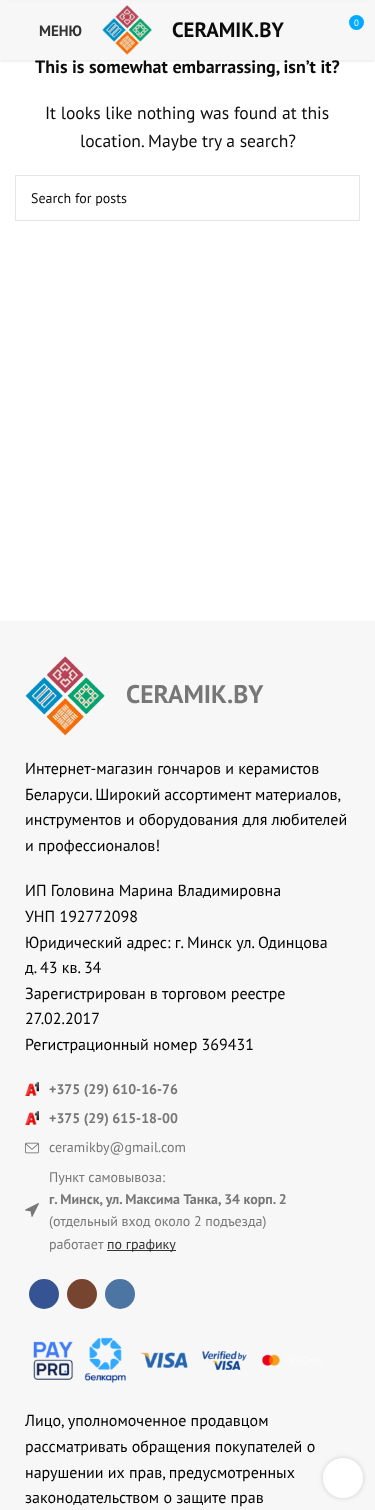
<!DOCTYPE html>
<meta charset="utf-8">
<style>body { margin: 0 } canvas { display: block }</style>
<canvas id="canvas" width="375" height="1510"></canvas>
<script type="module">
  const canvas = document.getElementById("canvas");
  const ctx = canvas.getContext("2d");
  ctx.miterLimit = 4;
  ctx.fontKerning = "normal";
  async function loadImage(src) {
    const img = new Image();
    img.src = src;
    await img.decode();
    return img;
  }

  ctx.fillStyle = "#ffffff";
  ctx.fillRect(0, 0, 375, 1510);
  ctx.fillStyle = "rgba(0, 0, 0, 0.1)";
  ctx.filter = "blur(1.5px)";
  ctx.beginPath();
  ctx.rect(0, 1, 375, 60);
  ctx.fill();
  ctx.filter = "none";
  ctx.fillStyle = "#f7f7f7";
  ctx.fillRect(0, 1, 375, 59);
  ctx.font = "bold 15px PT Sans";
  ctx.fillStyle = "#333333";
  ctx.fillText("МЕНЮ", 39, 36);
  ctx.drawImage(await loadImage("img1.png"), 102, 5, 50, 50);
  ctx.font = "bold 20.75px PT Sans";
  ctx.fillStyle = "#0c0c0c";
  ctx.fillText("CERAMIK.BY", 172, 37);
  ctx.fillStyle = "#00aaff";
  ctx.beginPath();
  ctx.arc(356.5, 22.5, 7.5, 0, Math.PI * 2);
  ctx.fill();
  ctx.font = "9px PT Sans";
  ctx.fillStyle = "#ffffff";
  ctx.fillText("0", 354, 26);
  ctx.font = "bold 18px PT Sans";
  ctx.fillStyle = "#0c0c0c";
  ctx.fillText("This is somewhat embarrassing, isn’t it?", 35, 73);
  ctx.font = "17.6px PT Sans";
  ctx.fillText("It looks like nothing was found at this", 45, 119);
  ctx.fillText("location. Maybe try a search?", 80, 147);
  ctx.strokeStyle = "#e6e6e6";
  ctx.strokeRect(15.5, 175.5, 344, 45);
  ctx.font = "14px PT Sans";
  ctx.fillText("Search for posts", 31, 203);
  ctx.fillStyle = "#f7f7f7";
  ctx.fillRect(0, 621, 375, 889);
  ctx.drawImage(await loadImage("img2.png"), 25, 656, 80, 80);
  ctx.font = "bold 25.5px PT Sans";
  ctx.fillStyle = "#777777";
  ctx.fillText("CERAMIK.BY", 126, 703);
  ctx.font = "16px PT Sans";
  ctx.fillStyle = "#000000";
  ctx.fillText("Интернет-магазин гончаров и керамистов", 25, 774);
  ctx.wordSpacing = "-0.5px";
  ctx.fillText("Беларуси. Широкий ассортимент материалов,", 25, 800);
  ctx.wordSpacing = "0px";
  ctx.fillText("инструментов и оборудования для любителей", 25, 825);
  ctx.fillText("и профессионалов!", 25, 851);
  ctx.fillText("ИП Головина Марина Владимировна", 25, 896);
  ctx.fillText("УНП 192772098", 25, 922);
  ctx.fillText("Юридический адрес: г. Минск ул. Одинцова", 25, 948);
  ctx.fillText("д. 43 кв. 34", 25, 973);
  ctx.fillText("Зарегистрирован в торговом реестре", 25, 999);
  ctx.fillText("27.02.2017", 25, 1024);
  ctx.fillText("Регистрационный номер 369431", 25, 1050);
  ctx.drawImage(await loadImage("img3.png"), 25, 1082, 14, 14);
  ctx.font = "bold 14px PT Sans";
  ctx.fillStyle = "#777777";
  ctx.fillText("+375 (29) 610-16-76", 49, 1094);
  ctx.drawImage(await loadImage("img3.png"), 25, 1111, 14, 14);
  ctx.fillText("+375 (29) 615-18-00", 49, 1123);
  ctx.drawImage(await loadImage("img4.png"), 25, 1142, 14, 12);
  ctx.font = "14px PT Sans";
  ctx.fillText("ceramikby@gmail.com", 49, 1152);
  ctx.drawImage(await loadImage("img5.png"), 25, 1203, 14, 14);
  ctx.fillText("Пункт самовывоза:", 49, 1182);
  ctx.font = "bold 14px PT Sans";
  ctx.fillText("г. Минск, ул. Максима Танка, 34 корп. 2", 49, 1204);
  ctx.font = "14px PT Sans";
  ctx.fillText("(отдельный вход около 2 подъезда)", 49, 1226);
  ctx.fillText("работает", 49, 1249);
  ctx.fillStyle = "#333333";
  ctx.fillRect(107, 1250, 69, 1);
  ctx.fillText("по графику", 107, 1249);
  ctx.fillStyle = "#365493";
  ctx.beginPath();
  ctx.arc(44, 1294, 15, 0, Math.PI * 2);
  ctx.fill();
  ctx.fillStyle = "#774430";
  ctx.beginPath();
  ctx.arc(82, 1294, 15, 0, Math.PI * 2);
  ctx.fill();
  ctx.fillStyle = "#4c75a3";
  ctx.beginPath();
  ctx.arc(120, 1294, 15, 0, Math.PI * 2);
  ctx.fill();
  ctx.drawImage(await loadImage("img6.png"), 33, 1337, 291, 46);
  ctx.font = "16px PT Sans";
  ctx.fillStyle = "#000000";
  ctx.fillText("Лицо, уполномоченное продавцом", 25, 1426);
  ctx.fillText("рассматривать обращения покупателей о", 25, 1452);
  ctx.fillText("нарушении их прав, предусмотренных", 25, 1478);
  ctx.fillText("законодательством о защите прав", 25, 1503);
  ctx.save();
  ctx.beginPath();
  ctx.moveTo(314, 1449);
  ctx.lineTo(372, 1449);
  ctx.lineTo(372, 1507);
  ctx.lineTo(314, 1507);
  ctx.closePath();
  ctx.moveTo(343, 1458);
  ctx.bezierCurveTo(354, 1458, 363, 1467, 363, 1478);
  ctx.bezierCurveTo(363, 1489, 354, 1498, 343, 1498);
  ctx.bezierCurveTo(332, 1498, 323, 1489, 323, 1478);
  ctx.bezierCurveTo(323, 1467, 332, 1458, 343, 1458);
  ctx.closePath();
  ctx.clip("evenodd");
  ctx.fillStyle = "rgba(0, 0, 0, 0.17)";
  ctx.filter = "blur(2.5px)";
  ctx.beginPath();
  ctx.roundRect(323, 1458, 40, 40, 20);
  ctx.fill();
  ctx.filter = "none";
  ctx.restore();
  ctx.fillStyle = "rgba(255, 255, 255, 0.9)";
  ctx.beginPath();
  ctx.arc(343, 1478, 20, 0, Math.PI * 2);
  ctx.fill();
</script>
